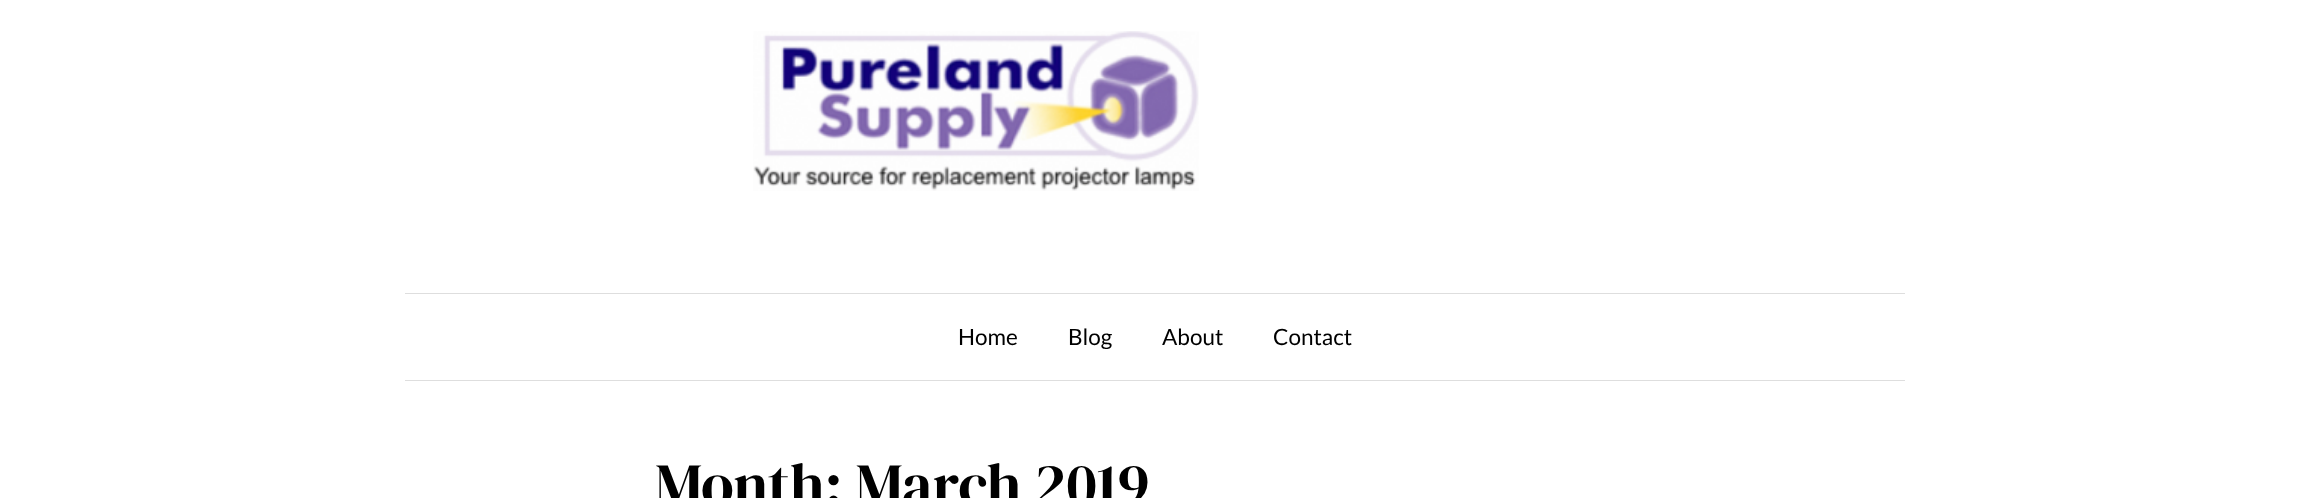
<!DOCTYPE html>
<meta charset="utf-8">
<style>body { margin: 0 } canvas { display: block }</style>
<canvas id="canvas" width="2310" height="498"></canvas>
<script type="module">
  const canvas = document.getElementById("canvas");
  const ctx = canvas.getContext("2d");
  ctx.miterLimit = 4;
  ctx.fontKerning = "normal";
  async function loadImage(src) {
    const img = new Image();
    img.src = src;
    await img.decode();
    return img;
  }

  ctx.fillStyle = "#ffffff";
  ctx.fillRect(0, 0, 2310, 498);
  ctx.drawImage(await loadImage("img1.png"), 753, 31, 446, 160);
  ctx.fillStyle = "#dedede";
  ctx.fillRect(405, 293, 1500, 1);
  ctx.fillRect(405, 380, 1500, 1);
  ctx.font = "22.5px Lato";
  ctx.fillStyle = "#000000";
  ctx.fillText("Home", 958, 345);
  ctx.fillText("Blog", 1068, 345);
  ctx.fillText("About", 1162, 345);
  ctx.fillText("Contact", 1273, 345);
  ctx.font = "60px DM Serif Display";
  ctx.fillText("Month: March 2019", 655, 505);
</script>
